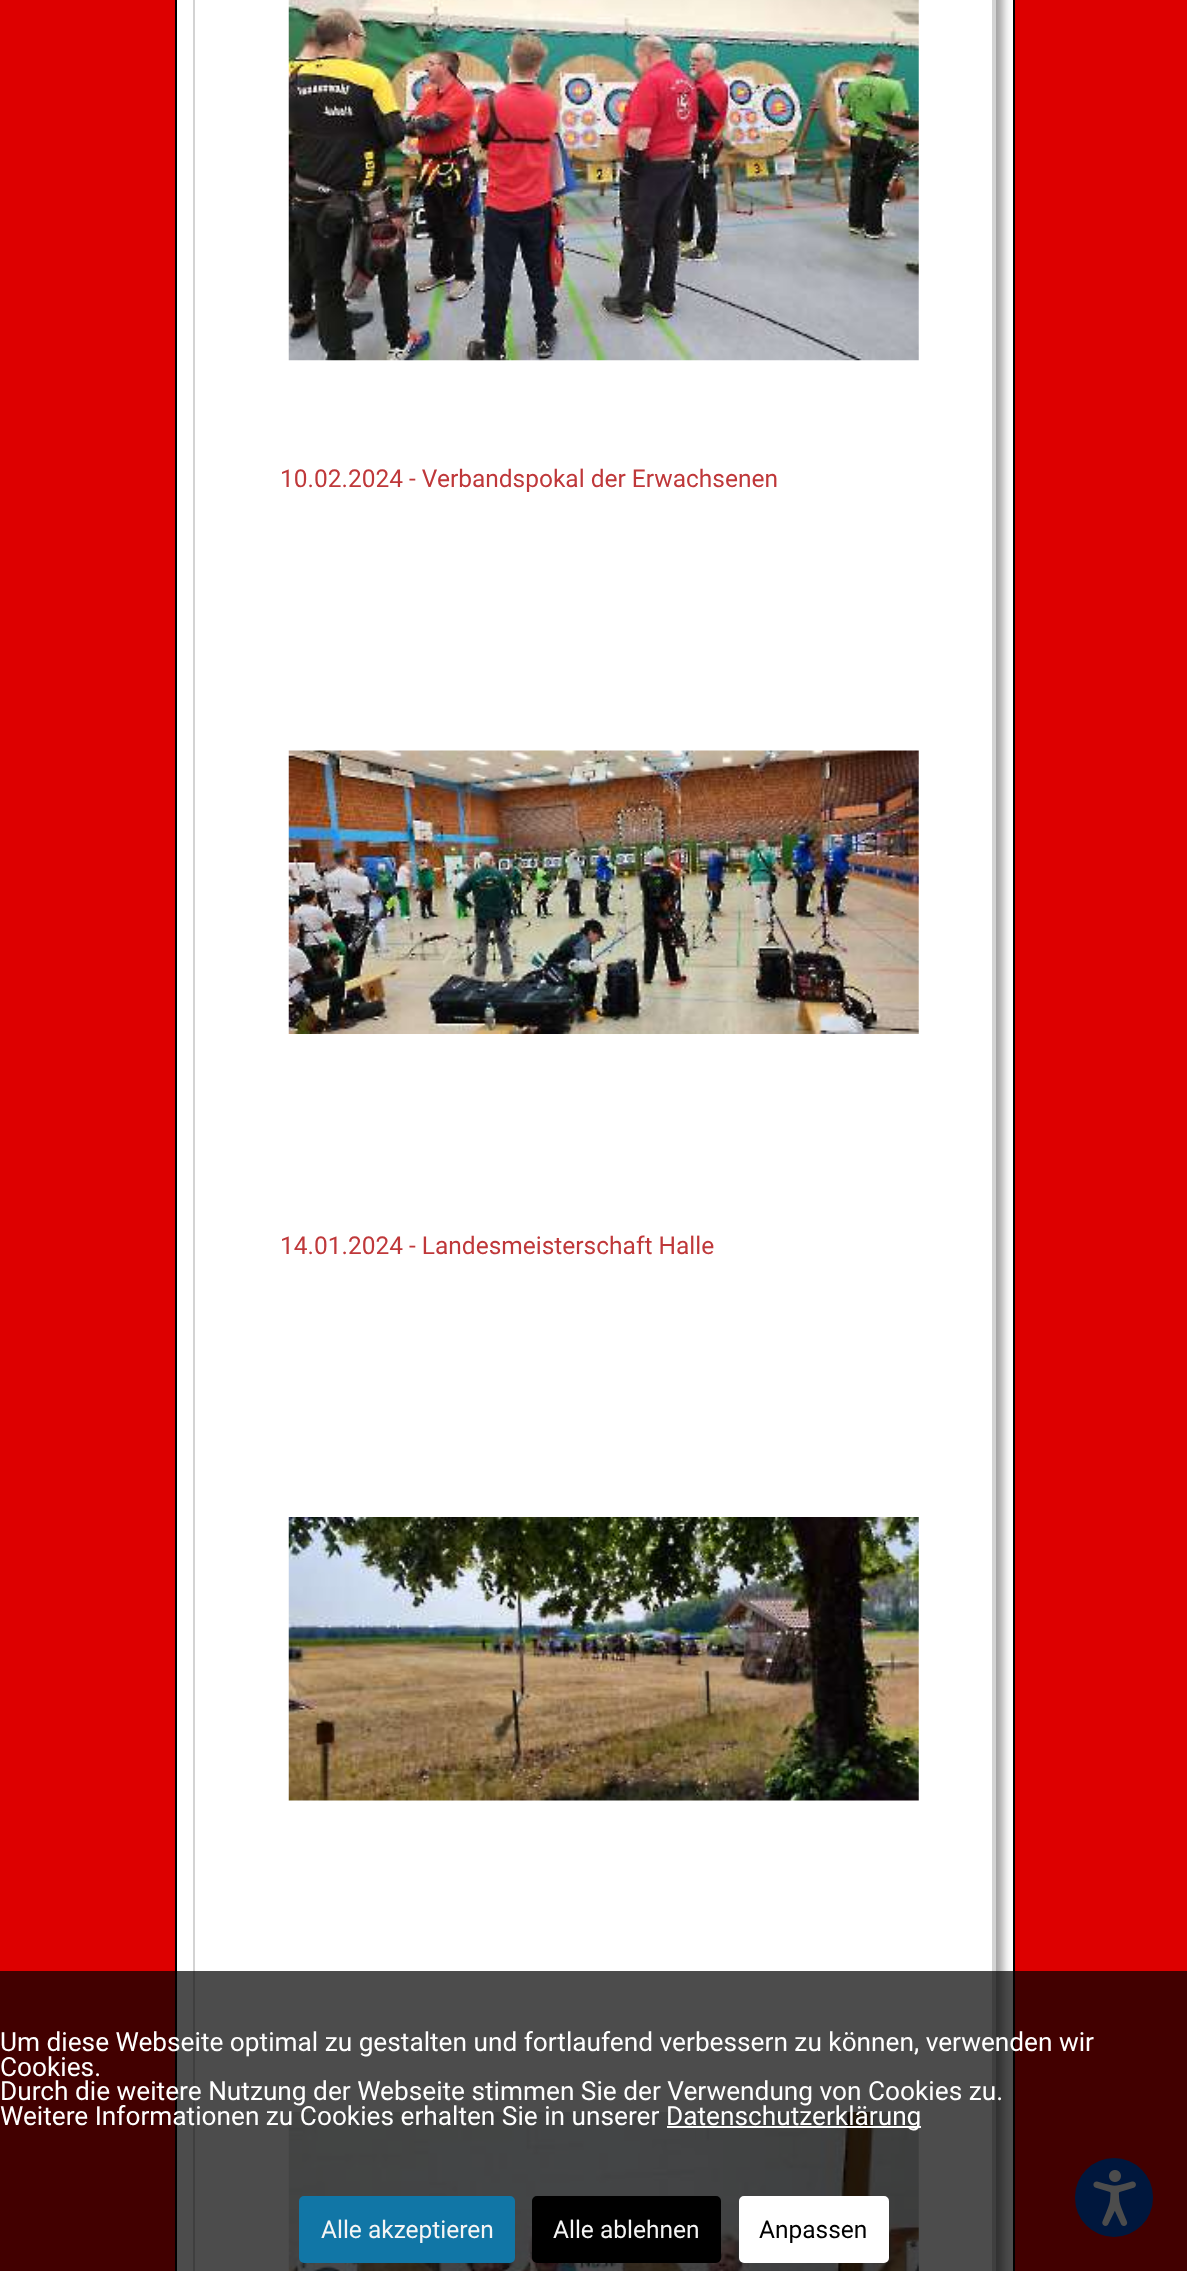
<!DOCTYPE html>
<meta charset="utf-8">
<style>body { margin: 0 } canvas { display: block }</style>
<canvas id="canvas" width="1187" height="2271"></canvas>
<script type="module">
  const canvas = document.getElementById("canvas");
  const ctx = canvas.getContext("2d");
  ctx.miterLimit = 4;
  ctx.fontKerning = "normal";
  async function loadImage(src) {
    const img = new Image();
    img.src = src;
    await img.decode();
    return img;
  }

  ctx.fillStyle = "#dd0000";
  ctx.fillRect(0, 0, 1187, 2271);
  ctx.fillStyle = "#ffffff";
  ctx.fillRect(177, 0, 836, 2271);
  ctx.fillStyle = "#000000";
  ctx.fillRect(1013, 0, 2, 2271);
  ctx.fillRect(175, 0, 2, 2271);
  ctx.save();
  ctx.beginPath();
  ctx.rect(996, 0, 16, 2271);
  ctx.clip();
  ctx.fillStyle = "rgba(61, 59, 59, 0.49)";
  ctx.filter = "blur(5px)";
  ctx.beginPath();
  ctx.rect(203, -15, 800, 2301);
  ctx.fill();
  ctx.filter = "none";
  ctx.restore();
  ctx.fillStyle = "#d3d3d3";
  ctx.fillRect(992, 0, 4, 2271);
  ctx.fillRect(193, 0, 2, 2271);
  ctx.drawImage(await loadImage("img1.png"), 288, 0, 631, 361);
  ctx.font = "24.5px Roboto";
  ctx.fillStyle = "#bf383a";
  ctx.fillText("10.02.2024 - Verbandspokal der Erwachsenen", 280, 487);
  ctx.drawImage(await loadImage("img2.png"), 288, 750, 631, 284);
  ctx.fillText("14.01.2024 - Landesmeisterschaft Halle", 280, 1254);
  ctx.drawImage(await loadImage("img3.png"), 288, 1517, 631, 284);
  ctx.drawImage(await loadImage("img4.png"), 288, 2112, 631, 159);
  ctx.fillStyle = "#004fce";
  ctx.beginPath();
  ctx.roundRect(1075, 2158, 78, 79, 39);
  ctx.fill();
  ctx.drawImage(await loadImage("img5.png"), 1093, 2170, 43, 56);
  ctx.fillStyle = "rgba(0, 0, 0, 0.7)";
  ctx.fillRect(0, 1971, 1187, 300);
  ctx.font = "26.25px Roboto";
  ctx.fillStyle = "#ffffff";
  ctx.fillText("Um diese Webseite optimal zu gestalten und fortlaufend verbessern zu können, verwenden wir", 0, 2051);
  ctx.fillText("Cookies.", 0, 2076);
  ctx.fillText("Durch die weitere Nutzung der Webseite stimmen Sie der Verwendung von Cookies zu.", 0, 2100);
  ctx.fillText("Weitere Informationen zu Cookies erhalten Sie in unserer", 0, 2125);
  ctx.fillRect(667, 2126, 254, 2);
  ctx.fillText("Datenschutzerklärung", 666, 2125);
  ctx.fillStyle = "#1176a6";
  ctx.beginPath();
  ctx.roundRect(301, 2198, 212, 63, 3);
  ctx.fill();
  ctx.strokeStyle = "#1176a6";
  ctx.lineWidth = 4;
  ctx.stroke();
  ctx.font = "24.5px Roboto";
  ctx.fillStyle = "#f5f5f5";
  ctx.fillText("Alle akzeptieren", 321, 2238);
  ctx.fillStyle = "#000000";
  ctx.beginPath();
  ctx.roundRect(534, 2198, 185, 63, 3);
  ctx.fill();
  ctx.strokeStyle = "#000000";
  ctx.stroke();
  ctx.fillStyle = "#f5f5f5";
  ctx.fillText("Alle ablehnen", 553, 2238);
  ctx.fillStyle = "#ffffff";
  ctx.beginPath();
  ctx.roundRect(741, 2198, 146, 63, 3);
  ctx.fill();
  ctx.strokeStyle = "#ffffff";
  ctx.stroke();
  ctx.fillStyle = "#000000";
  ctx.fillText("Anpassen", 759, 2238);
</script>
